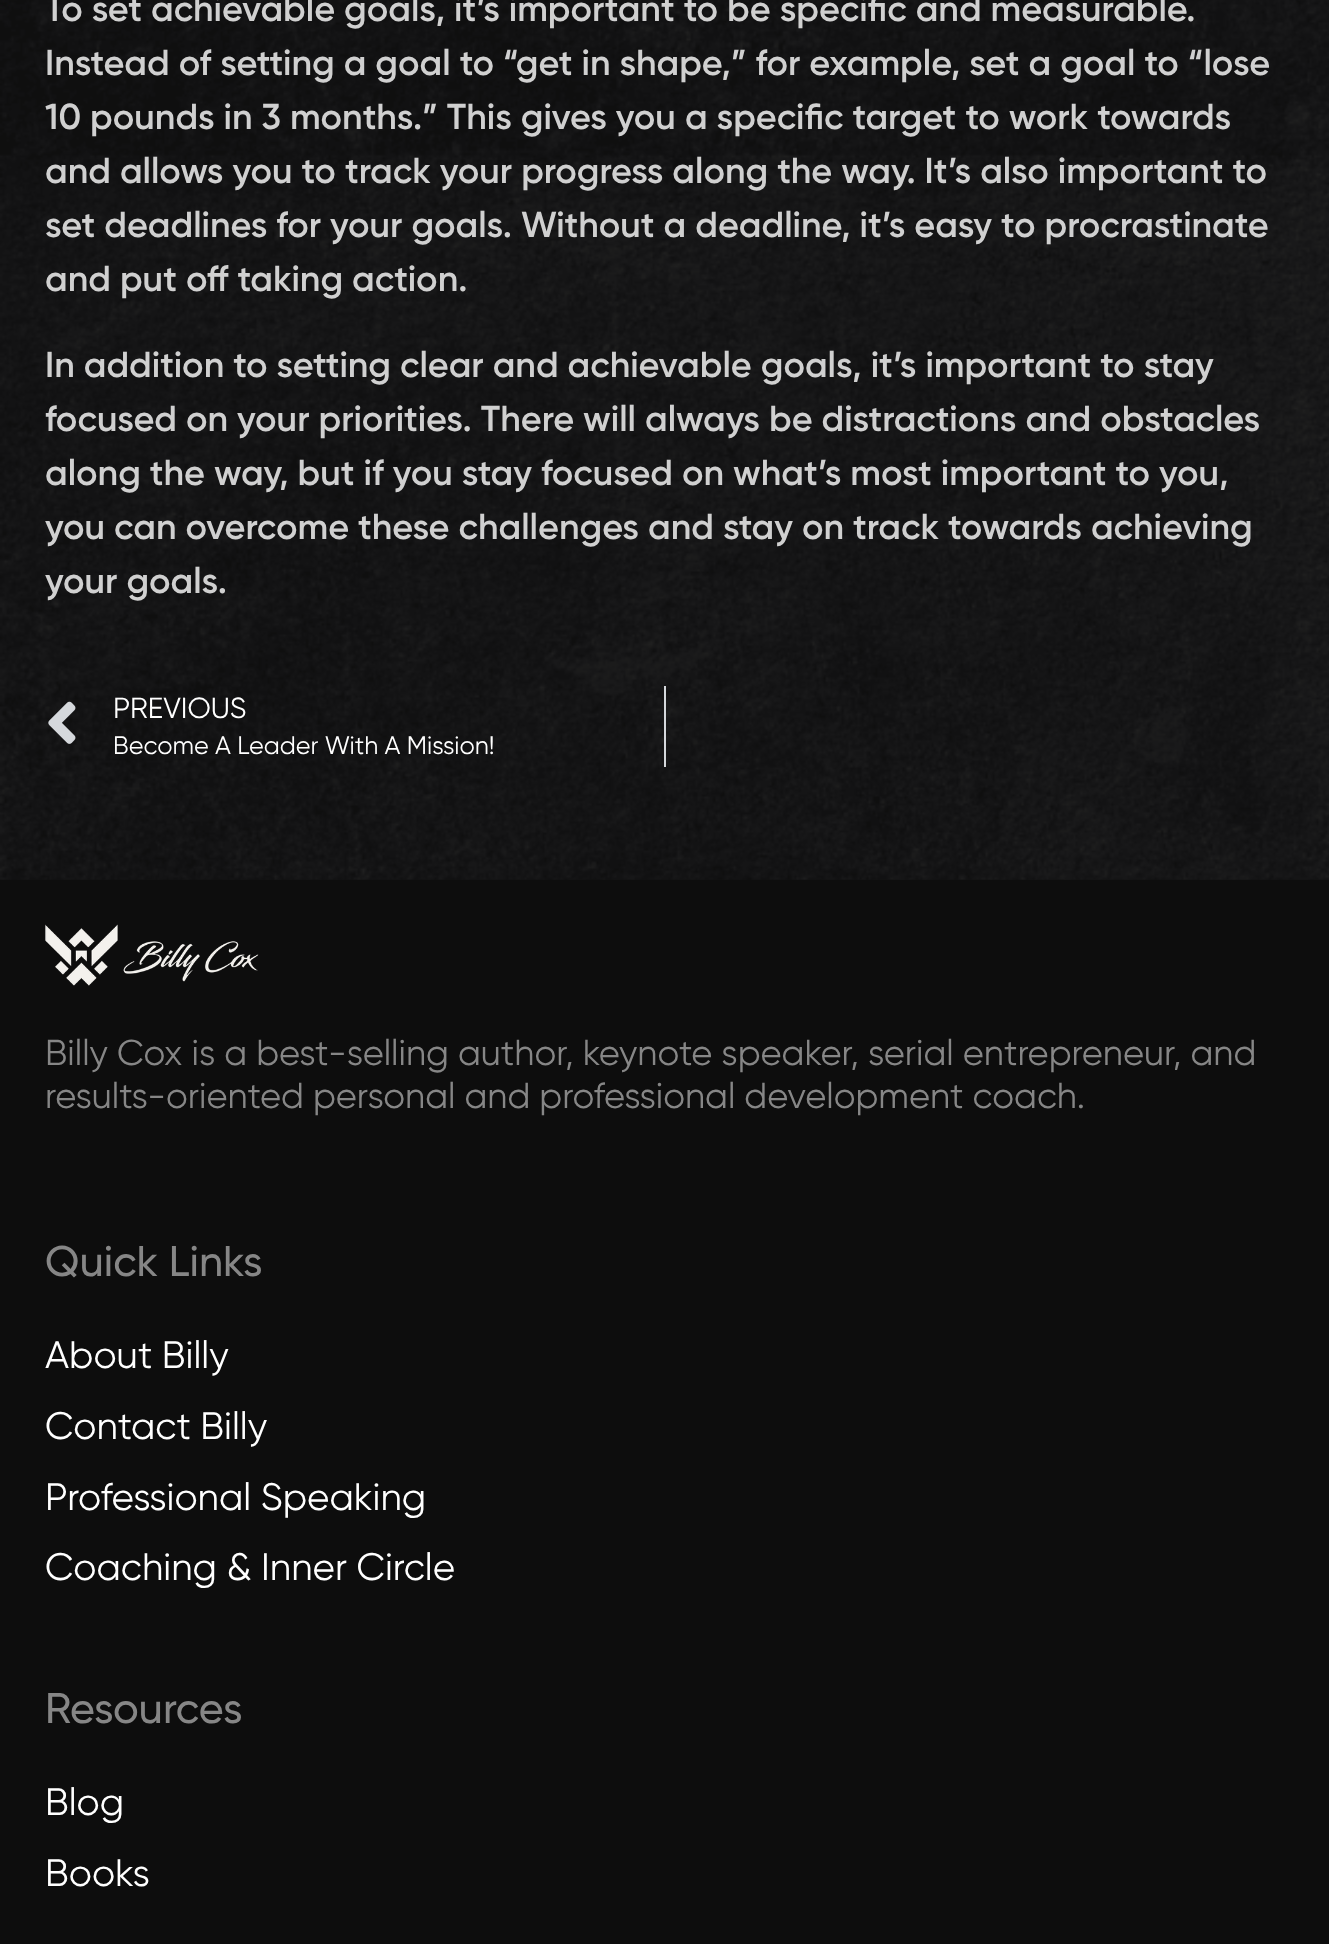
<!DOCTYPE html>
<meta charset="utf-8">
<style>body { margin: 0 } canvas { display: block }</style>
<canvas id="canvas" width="1329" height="1944"></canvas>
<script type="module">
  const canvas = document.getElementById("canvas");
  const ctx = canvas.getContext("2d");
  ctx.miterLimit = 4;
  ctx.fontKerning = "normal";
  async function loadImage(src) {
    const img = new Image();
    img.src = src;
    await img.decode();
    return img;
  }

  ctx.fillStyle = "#0d0d0d";
  ctx.fillRect(0, 0, 1329, 1944);
  ctx.drawImage(await loadImage("img1.png"), 0, 0, 1329, 880);
  ctx.font = "600 36px Gilroy";
  ctx.fillStyle = "#d0d0d0";
  ctx.fillText("To set achievable goals, it’s important to be specific and measurable.", 45, 21);
  ctx.fillText("Instead of setting a goal to “get in shape,” for example, set a goal to “lose", 45, 75);
  ctx.fillText("10 pounds in 3 months.” This gives you a specific target to work towards", 45, 129);
  ctx.fillText("and allows you to track your progress along the way. It’s also important to", 45, 183);
  ctx.fillText("set deadlines for your goals. Without a deadline, it’s easy to procrastinate", 45, 237);
  ctx.fillText("and put off taking action.", 45, 291);
  ctx.fillText("In addition to setting clear and achievable goals, it’s important to stay", 45, 377);
  ctx.fillText("focused on your priorities. There will always be distractions and obstacles", 45, 431);
  ctx.fillText("along the way, but if you stay focused on what’s most important to you,", 45, 485);
  ctx.fillText("you can overcome these challenges and stay on track towards achieving", 45, 539);
  ctx.fillText("your goals.", 45, 593);
  ctx.drawImage(await loadImage("img2.png"), 48, 701, 28, 43);
  ctx.font = "29px Gilroy";
  ctx.fillStyle = "#ffffff";
  ctx.fillText("PREVIOUS", 113, 718);
  ctx.font = "25.25px Gilroy";
  ctx.fillText("Become A Leader With A Mission!", 113, 754);
  ctx.fillStyle = "#d5d8dc";
  ctx.fillRect(664, 686, 2, 81);
  ctx.drawImage(await loadImage("img3.png"), 45, 924, 214, 62);
  ctx.font = "36px Gilroy";
  ctx.fillStyle = "#868686";
  ctx.fillText("Billy Cox is a best-selling author, keynote speaker, serial entrepreneur, and", 45, 1065);
  ctx.fillText("results-oriented personal and professional development coach.", 45, 1108);
  ctx.font = "500 42.75px Gilroy";
  ctx.fillText("Quick Links", 45, 1276);
  ctx.font = "38.25px Gilroy";
  ctx.fillStyle = "#ffffff";
  ctx.fillText("About Billy", 45, 1368);
  ctx.fillText("Contact Billy", 45, 1439);
  ctx.fillText("Professional Speaking", 45, 1510);
  ctx.fillText("Coaching & Inner Circle", 45, 1580);
  ctx.font = "500 42.75px Gilroy";
  ctx.fillStyle = "#868686";
  ctx.fillText("Resources", 45, 1723);
  ctx.font = "38.25px Gilroy";
  ctx.fillStyle = "#ffffff";
  ctx.fillText("Blog", 45, 1815);
  ctx.fillText("Books", 45, 1886);
</script>
